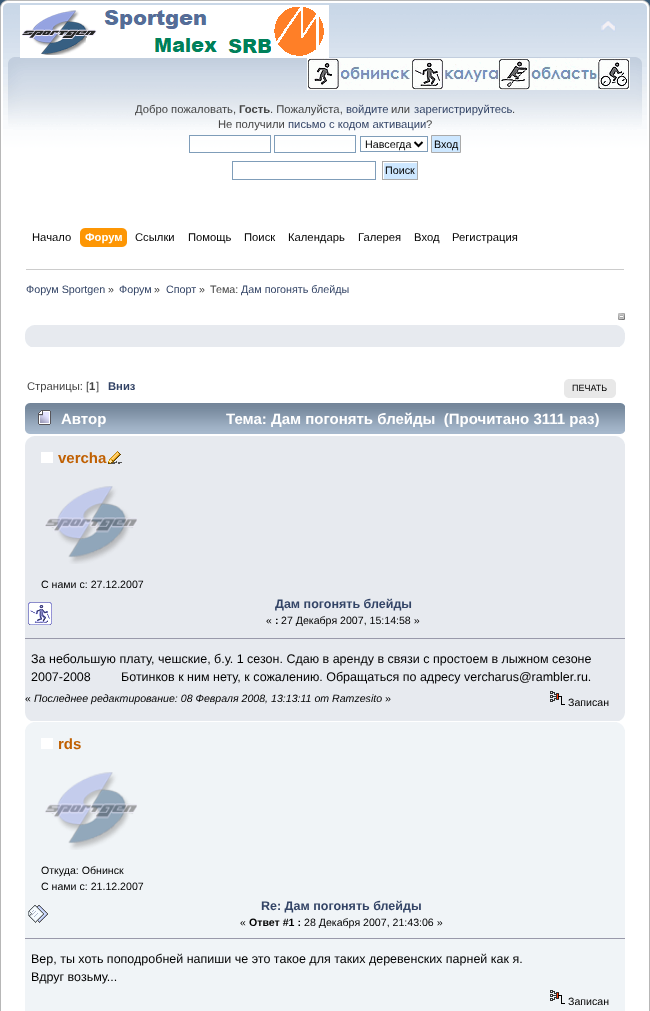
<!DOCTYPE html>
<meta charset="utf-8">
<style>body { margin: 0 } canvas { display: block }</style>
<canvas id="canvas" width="650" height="1011"></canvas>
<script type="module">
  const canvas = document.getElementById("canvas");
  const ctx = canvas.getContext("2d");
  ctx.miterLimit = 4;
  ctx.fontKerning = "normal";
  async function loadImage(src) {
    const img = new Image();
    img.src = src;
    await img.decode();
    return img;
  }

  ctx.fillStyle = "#ffffff";
  ctx.fillRect(0, 0, 650, 1011);
  ctx.drawImage(await loadImage("img1.png"), 0, 0, 636, 262);
  ctx.drawImage(await loadImage("img2.png"), 636, 0, 14, 262);
  ctx.drawImage(await loadImage("img3.png"), 20, 5, 309, 53);
  ctx.drawImage(await loadImage("img4.png"), 601, 20, 15, 12);
  ctx.drawImage(await loadImage("img5.png"), 307, 58, 323, 32);
  ctx.font = "11.25px Liberation Sans";
  ctx.fillStyle = "#444444";
  ctx.fillText("Добро пожаловать,", 135, 113);
  ctx.font = "bold 11.25px Liberation Sans";
  ctx.fillText("Гость", 239, 113);
  ctx.font = "11.25px Liberation Sans";
  ctx.fillText(". Пожалуйста,", 270, 113);
  ctx.fillStyle = "#334466";
  ctx.fillText("войдите", 346, 113);
  ctx.fillStyle = "#444444";
  ctx.fillText("или", 391, 113);
  ctx.fillStyle = "#334466";
  ctx.fillText("зарегистрируйтесь", 414, 113);
  ctx.fillStyle = "#444444";
  ctx.fillText(".", 512, 113);
  ctx.fillText("Не получили", 218, 128);
  ctx.fillStyle = "#334466";
  ctx.fillText("письмо с кодом активации", 288, 128);
  ctx.fillStyle = "#444444";
  ctx.fillText("?", 426, 128);
  ctx.fillStyle = "#ffffff";
  ctx.fillRect(190, 136, 80, 4);
  ctx.strokeStyle = "#7f9db9";
  ctx.strokeRect(189.5, 135.5, 81, 17);
  ctx.fillRect(275, 136, 80, 4);
  ctx.strokeRect(274.5, 135.5, 81, 17);
  ctx.fillRect(361, 137, 66, 3);
  ctx.strokeRect(360.5, 136.5, 67, 15);
  ctx.beginPath();
  ctx.moveTo(414.5, 142);
  ctx.lineTo(418.5, 146);
  ctx.lineTo(422.5, 142);
  ctx.strokeStyle = "#000000";
  ctx.lineWidth = 2;
  ctx.stroke();
  ctx.font = "10.75px Liberation Sans";
  ctx.fillStyle = "#000000";
  ctx.fillText("Навсегда", 365, 148);
  ctx.fillStyle = "#cde7ff";
  ctx.beginPath();
  ctx.rect(431.5, 135.5, 29, 17);
  ctx.fill();
  ctx.strokeStyle = "#aaaaaa";
  ctx.lineWidth = 1;
  ctx.stroke();
  ctx.fillStyle = "#000000";
  ctx.fillText("Вход", 434, 148);
  ctx.strokeStyle = "#7f9db9";
  ctx.strokeRect(232.5, 161.5, 143, 18);
  ctx.drawImage(await loadImage("img6.png"), 383, 162, 34, 17);
  ctx.strokeStyle = "#aaaaaa";
  ctx.strokeRect(382.5, 161.5, 35, 18);
  ctx.fillText("Поиск", 385, 174);
  ctx.font = "11.25px Liberation Sans";
  ctx.fillText("Начало", 32, 241);
  ctx.drawImage(await loadImage("img7.png"), 85, 228, 42, 19);
  ctx.drawImage(await loadImage("img8.png"), 80, 228, 5, 19);
  ctx.font = "bold 11.25px Liberation Sans";
  ctx.fillStyle = "#ffffff";
  ctx.fillText("Форум", 85, 241);
  ctx.font = "11.25px Liberation Sans";
  ctx.fillStyle = "#000000";
  ctx.fillText("Ссылки", 135, 241);
  ctx.fillText("Помощь", 188, 241);
  ctx.fillText("Поиск", 244, 241);
  ctx.fillText("Календарь", 288, 241);
  ctx.fillText("Галерея", 358, 241);
  ctx.fillText("Вход", 414, 241);
  ctx.fillText("Регистрация", 452, 241);
  ctx.fillStyle = "#b7b7b7";
  ctx.fillRect(0, 262, 1, 749);
  ctx.fillRect(649, 262, 1, 749);
  ctx.fillStyle = "#cccccc";
  ctx.fillRect(26, 269, 598, 1);
  ctx.font = "10.75px Liberation Sans";
  ctx.fillStyle = "#334466";
  ctx.fillText("Форум Sportgen", 26, 293);
  ctx.fillStyle = "#444444";
  ctx.fillText("»", 108, 293);
  ctx.fillStyle = "#334466";
  ctx.fillText("Форум", 119, 293);
  ctx.fillStyle = "#444444";
  ctx.fillText("»", 154, 293);
  ctx.fillStyle = "#334466";
  ctx.fillText("Спорт", 166, 293);
  ctx.fillStyle = "#444444";
  ctx.fillText("»", 199, 293);
  ctx.fillText("Тема:", 210, 293);
  ctx.fillStyle = "#334466";
  ctx.fillText("Дам погонять блейды", 241, 293);
  ctx.drawImage(await loadImage("img9.png"), 618, 313, 7, 7);
  ctx.fillStyle = "#e7eaef";
  ctx.fillRect(25, 325, 600, 22);
  ctx.drawImage(await loadImage("img10.png"), 25, 325, 9, 9);
  ctx.drawImage(await loadImage("img11.png"), 617, 325, 8, 8);
  ctx.drawImage(await loadImage("img12.png"), 25, 339, 6, 8);
  ctx.drawImage(await loadImage("img13.png"), 620, 339, 5, 8);
  ctx.font = "11.25px Liberation Sans";
  ctx.fillStyle = "#444444";
  ctx.fillText("Страницы: [", 27, 390);
  ctx.font = "bold 11.25px Liberation Sans";
  ctx.fillText("1", 89, 390);
  ctx.font = "11.25px Liberation Sans";
  ctx.fillText("]", 96, 390);
  ctx.font = "bold 11.25px Liberation Sans";
  ctx.fillStyle = "#334466";
  ctx.fillText("Вниз", 108, 390);
  ctx.fillStyle = "#e8e8e8";
  ctx.fillRect(568, 379, 44, 19);
  ctx.drawImage(await loadImage("img14.png"), 564, 379, 4, 19);
  ctx.drawImage(await loadImage("img15.png"), 612, 379, 4, 19);
  ctx.font = "9px Liberation Sans";
  ctx.fillStyle = "#000000";
  ctx.fillText("ПЕЧАТЬ", 572, 391);
  ctx.drawImage(await loadImage("img16.png"), 25, 403, 595, 31);
  ctx.drawImage(await loadImage("img17.png"), 620, 403, 5, 31);
  ctx.drawImage(await loadImage("img18.png"), 38, 410, 13, 15);
  ctx.font = "bold 15px Liberation Sans";
  ctx.fillStyle = "#ffffff";
  ctx.fillText("Автор", 61, 424);
  ctx.fillText("Тема: Дам погонять блейды  (Прочитано 3111 раз)", 226, 424);
  ctx.fillStyle = "#e7eaef";
  ctx.fillRect(25, 436, 600, 285);
  ctx.drawImage(await loadImage("img10.png"), 25, 436, 9, 9);
  ctx.drawImage(await loadImage("img19.png"), 616, 436, 9, 8);
  ctx.fillStyle = "#ffffff";
  ctx.fillRect(41, 452, 12, 11);
  ctx.fillStyle = "#c06002";
  ctx.fillText("vercha", 58, 463);
  ctx.drawImage(await loadImage("img20.png"), 108, 451, 14, 13);
  ctx.drawImage(await loadImage("img21.png"), 44, 486, 93, 78);
  ctx.font = "10.6px Liberation Sans";
  ctx.fillStyle = "#000000";
  ctx.fillText("C нами с: 27.12.2007", 41, 588);
  ctx.drawImage(await loadImage("img22.png"), 28, 602, 24, 23);
  ctx.font = "bold 12.5px Liberation Sans";
  ctx.fillStyle = "#334466";
  ctx.fillText("Дам погонять блейды", 275, 608);
  ctx.font = "10.6px Liberation Sans";
  ctx.fillStyle = "#000000";
  ctx.fillText("«", 266, 624);
  ctx.font = "bold 10.6px Liberation Sans";
  ctx.fillText(":", 275, 624);
  ctx.font = "10.6px Liberation Sans";
  ctx.fillText("27 Декабря 2007, 15:14:58 »", 281, 624);
  ctx.fillStyle = "#9999aa";
  ctx.fillRect(25, 638, 600, 1);
  ctx.font = "12.5px Liberation Sans";
  ctx.fillStyle = "#000000";
  ctx.fillText("За небольшую плату, чешские, б.у. 1 сезон. Сдаю в аренду в связи с простоем в лыжном сезоне", 31, 663);
  ctx.fillText("2007-2008", 31, 681);
  ctx.fillText("Ботинков к ним нету, к сожалению. Обращаться по адресу vercharus@rambler.ru.", 121, 681);
  ctx.font = "10.6px Liberation Sans";
  ctx.fillText("«", 25, 702);
  ctx.font = "italic 10.6px Liberation Sans";
  ctx.fillText("Последнее редактирование: 08 Февраля 2008, 13:13:11 от Ramzesito", 34, 702);
  ctx.font = "10.6px Liberation Sans";
  ctx.fillText("»", 385, 702);
  ctx.drawImage(await loadImage("img23.png"), 550, 691, 15, 14);
  ctx.fillText("Записан", 568, 706);
  ctx.drawImage(await loadImage("img12.png"), 25, 713, 6, 8);
  ctx.drawImage(await loadImage("img24.png"), 619, 713, 6, 8);
  ctx.fillStyle = "#f0f4f7";
  ctx.fillRect(25, 722, 600, 289);
  ctx.drawImage(await loadImage("img25.png"), 25, 722, 8, 8);
  ctx.drawImage(await loadImage("img26.png"), 617, 722, 8, 8);
  ctx.fillStyle = "#ffffff";
  ctx.fillRect(41, 738, 12, 11);
  ctx.font = "bold 15px Liberation Sans";
  ctx.fillStyle = "#c06002";
  ctx.fillText("rds", 58, 749);
  ctx.drawImage(await loadImage("img27.png"), 45, 772, 92, 78);
  ctx.font = "10.6px Liberation Sans";
  ctx.fillStyle = "#000000";
  ctx.fillText("Откуда: Обнинск", 41, 874);
  ctx.fillText("C нами с: 21.12.2007", 41, 890);
  ctx.drawImage(await loadImage("img28.png"), 28, 905, 20, 18);
  ctx.font = "bold 12.5px Liberation Sans";
  ctx.fillStyle = "#334466";
  ctx.fillText("Re: Дам погонять блейды", 261, 910);
  ctx.font = "10.6px Liberation Sans";
  ctx.fillStyle = "#000000";
  ctx.fillText("«", 240, 926);
  ctx.font = "bold 10.6px Liberation Sans";
  ctx.fillText("Ответ #1 :", 249, 926);
  ctx.font = "10.6px Liberation Sans";
  ctx.fillText("28 Декабря 2007, 21:43:06 »", 304, 926);
  ctx.fillStyle = "#9999aa";
  ctx.fillRect(25, 938, 600, 1);
  ctx.font = "12.5px Liberation Sans";
  ctx.fillStyle = "#000000";
  ctx.fillText("Вер, ты хоть поподробней напиши че это такое для таких деревенских парней как я.", 31, 963);
  ctx.fillText("Вдруг возьму...", 31, 981);
  ctx.drawImage(await loadImage("img29.png"), 550, 990, 15, 14);
  ctx.font = "10.6px Liberation Sans";
  ctx.fillText("Записан", 568, 1005);
</script>
